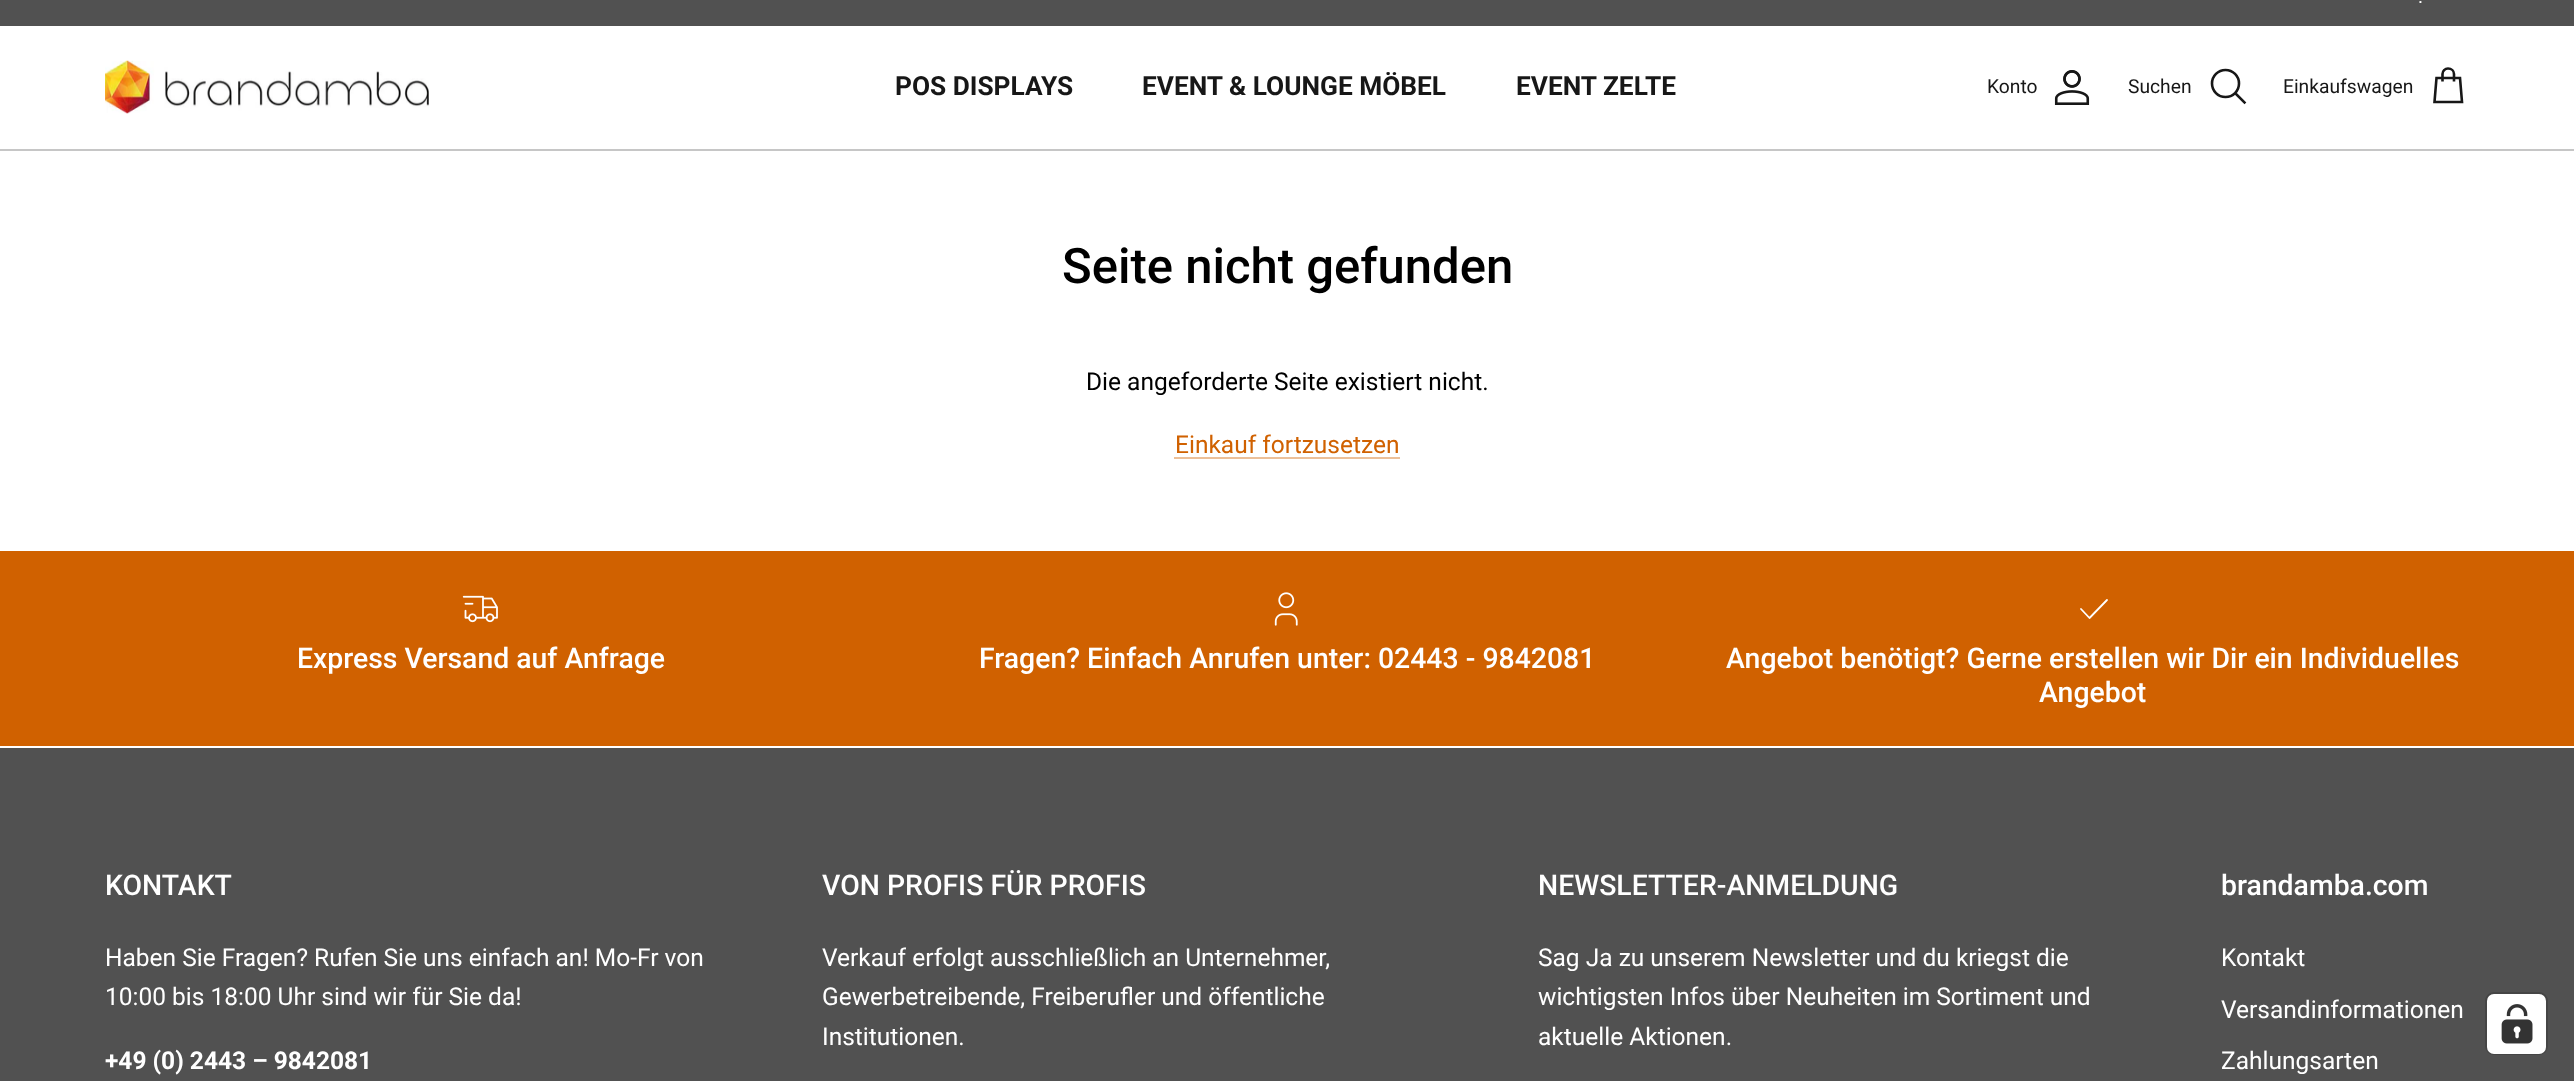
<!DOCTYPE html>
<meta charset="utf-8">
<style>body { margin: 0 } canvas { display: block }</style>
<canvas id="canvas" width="2574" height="1081"></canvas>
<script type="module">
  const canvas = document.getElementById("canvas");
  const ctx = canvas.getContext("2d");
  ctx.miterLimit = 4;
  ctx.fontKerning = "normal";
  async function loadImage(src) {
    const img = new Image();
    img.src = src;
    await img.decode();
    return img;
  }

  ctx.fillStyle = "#ffffff";
  ctx.fillRect(0, 0, 2574, 1081);
  ctx.fillStyle = "#515151";
  ctx.fillRect(0, 0, 2574, 26);
  ctx.font = "19.25px Roboto";
  ctx.fillStyle = "#ffffff";
  ctx.fillText(".", 2418, 3);
  ctx.fillStyle = "#c6c6c6";
  ctx.fillRect(0, 149, 2574, 2);
  ctx.drawImage(await loadImage("img1.png"), 105, 60, 324, 54);
  ctx.font = "bold 26.25px Roboto";
  ctx.fillStyle = "#171717";
  ctx.fillText("POS DISPLAYS", 895, 95);
  ctx.fillText("EVENT & LOUNGE MÖBEL", 1142, 95);
  ctx.fillText("EVENT ZELTE", 1516, 95);
  ctx.font = "19.25px Roboto";
  ctx.fillText("Konto", 1987, 93);
  ctx.drawImage(await loadImage("img2.png"), 2054, 70, 36, 35);
  ctx.fillText("Suchen", 2128, 93);
  ctx.beginPath();
  ctx.arc(2225.5, 83.5, 13.5, 0, Math.PI * 2);
  ctx.strokeStyle = "#171717";
  ctx.lineWidth = 2.6;
  ctx.stroke();
  ctx.beginPath();
  ctx.moveTo(2236.5, 94.5);
  ctx.lineTo(2244.5, 102.5);
  ctx.lineCap = "square";
  ctx.stroke();
  ctx.fillText("Einkaufswagen", 2283, 93);
  ctx.beginPath();
  ctx.moveTo(2454, 81.5);
  ctx.lineTo(2454, 74);
  ctx.bezierCurveTo(2454, 71, 2451.5, 68.5, 2448, 68.5);
  ctx.bezierCurveTo(2445, 68.5, 2442.5, 71, 2442.5, 74);
  ctx.lineTo(2442.5, 81.5);
  ctx.moveTo(2436.5, 78);
  ctx.lineTo(2460, 78);
  ctx.lineTo(2462, 102);
  ctx.lineTo(2434.5, 102);
  ctx.closePath();
  ctx.lineCap = "butt";
  ctx.stroke();
  ctx.font = "500 49px Roboto";
  ctx.fillStyle = "#000000";
  ctx.fillText("Seite nicht gefunden", 1062, 283);
  ctx.font = "24.5px Roboto";
  ctx.fillText("Die angeforderte Seite existiert nicht.", 1086, 390);
  ctx.fillStyle = "#d06100";
  ctx.fillText("Einkauf fortzusetzen", 1175, 453);
  ctx.fillStyle = "#ecc099";
  ctx.fillRect(1174, 457, 226, 2);
  ctx.fillStyle = "#d06100";
  ctx.fillRect(0, 551, 2574, 195);
  ctx.drawImage(await loadImage("img3.png"), 462, 595, 36, 28);
  ctx.font = "500 28.4px Roboto";
  ctx.fillStyle = "#ffffff";
  ctx.fillText("Express Versand auf Anfrage", 297, 668);
  ctx.drawImage(await loadImage("img4.png"), 1274, 592, 24, 34);
  ctx.fillText("Fragen? Einfach Anrufen unter: 02443 - 9842081", 979, 668);
  ctx.beginPath();
  ctx.moveTo(2081, 609);
  ctx.lineTo(2089.5, 618);
  ctx.lineTo(2107, 600);
  ctx.strokeStyle = "#ffffff";
  ctx.lineWidth = 1.8;
  ctx.lineCap = "round";
  ctx.lineJoin = "round";
  ctx.stroke();
  ctx.fillText("Angebot benötigt? Gerne erstellen wir Dir ein Individuelles", 1726, 668);
  ctx.fillText("Angebot", 2039, 702);
  ctx.fillStyle = "#515151";
  ctx.fillRect(0, 748, 2574, 333);
  ctx.fillStyle = "#ffffff";
  ctx.fillText("KONTAKT", 105, 895);
  ctx.font = "24.5px Roboto";
  ctx.fillText("Haben Sie Fragen? Rufen Sie uns einfach an! Mo-Fr von", 105, 966);
  ctx.fillText("10:00 bis 18:00 Uhr sind wir für Sie da!", 105, 1005);
  ctx.font = "bold 24.5px Roboto";
  ctx.fillText("+49 (0) 2443 – 9842081", 105, 1069);
  ctx.font = "500 28.4px Roboto";
  ctx.fillText("VON PROFIS FÜR PROFIS", 822, 895);
  ctx.font = "24.5px Roboto";
  ctx.fillText("Verkauf erfolgt ausschließlich an Unternehmer,", 822, 966);
  ctx.fillText("Gewerbetreibende, Freiberufler und öffentliche", 822, 1005);
  ctx.fillText("Institutionen.", 822, 1045);
  ctx.font = "500 28.4px Roboto";
  ctx.fillText("NEWSLETTER-ANMELDUNG", 1538, 895);
  ctx.font = "24.5px Roboto";
  ctx.fillText("Sag Ja zu unserem Newsletter und du kriegst die", 1538, 966);
  ctx.fillText("wichtigsten Infos über Neuheiten im Sortiment und", 1538, 1005);
  ctx.fillText("aktuelle Aktionen.", 1538, 1045);
  ctx.font = "500 28.4px Roboto";
  ctx.fillText("brandamba.com", 2221, 895);
  ctx.font = "24.5px Roboto";
  ctx.fillText("Kontakt", 2221, 966);
  ctx.fillText("Versandinformationen", 2221, 1018);
  ctx.fillText("Zahlungsarten", 2221, 1069);
  ctx.beginPath();
  ctx.roundRect(2486, 993, 61, 61, 8);
  ctx.strokeStyle = "#454545";
  ctx.lineWidth = 2;
  ctx.lineJoin = "miter";
  ctx.stroke();
  ctx.beginPath();
  ctx.roundRect(2487, 994, 59, 60, 7);
  ctx.fill();
  ctx.drawImage(await loadImage("img5.png"), 2501, 1004, 32, 40);
</script>
